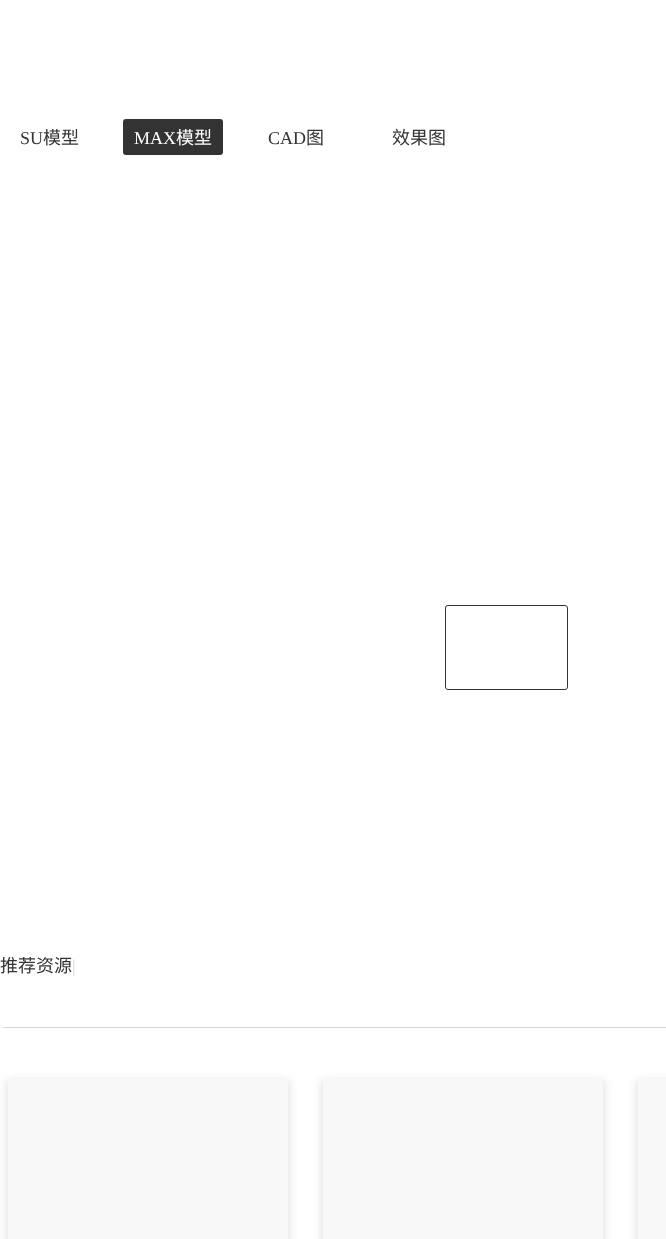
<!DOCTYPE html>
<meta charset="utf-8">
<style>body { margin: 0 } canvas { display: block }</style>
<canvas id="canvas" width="666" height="1239"></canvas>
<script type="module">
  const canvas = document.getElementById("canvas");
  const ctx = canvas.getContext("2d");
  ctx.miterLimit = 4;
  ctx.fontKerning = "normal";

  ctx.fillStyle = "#ffffff";
  ctx.fillRect(0, 0, 666, 1239);
  ctx.font = "18px Liberation Serif";
  ctx.fillStyle = "#333333";
  ctx.fillText("SU", 20, 144);
  ctx.font = "18px Noto Sans CJK SC";
  ctx.fillText("模型", 43, 144);
  ctx.beginPath();
  ctx.roundRect(123, 119, 100, 36, 3);
  ctx.fill();
  ctx.font = "18px Liberation Serif";
  ctx.fillStyle = "#ffffff";
  ctx.fillText("MAX", 134, 144);
  ctx.font = "18px Noto Sans CJK SC";
  ctx.fillText("模型", 176, 144);
  ctx.font = "18px Liberation Serif";
  ctx.fillStyle = "#333333";
  ctx.fillText("CAD", 268, 144);
  ctx.font = "18px Noto Sans CJK SC";
  ctx.fillText("图", 306, 144);
  ctx.fillText("效果图", 392, 144);
  ctx.beginPath();
  ctx.roundRect(445.5, 605.5, 122, 84, 2.5);
  ctx.strokeStyle = "#333333";
  ctx.stroke();
  ctx.fillText("推荐资源", 0, 972);
  ctx.font = "18px Liberation Serif";
  ctx.fillStyle = "#d6d7dc";
  ctx.fillText("|", 72, 972);
  ctx.fillRect(3, 1027, 663, 1);
  ctx.fillStyle = "rgba(0, 0, 0, 0.1)";
  ctx.filter = "blur(4px)";
  ctx.beginPath();
  ctx.rect(6, 1080, 284, 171);
  ctx.fill();
  ctx.filter = "none";
  ctx.fillStyle = "#f8f8f8";
  ctx.fillRect(8, 1079, 280, 160);
  ctx.fillStyle = "rgba(0, 0, 0, 0.1)";
  ctx.filter = "blur(4px)";
  ctx.beginPath();
  ctx.rect(321, 1080, 284, 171);
  ctx.fill();
  ctx.filter = "none";
  ctx.fillStyle = "#f8f8f8";
  ctx.fillRect(323, 1079, 280, 160);
  ctx.fillStyle = "rgba(0, 0, 0, 0.1)";
  ctx.filter = "blur(4px)";
  ctx.beginPath();
  ctx.rect(636, 1080, 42, 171);
  ctx.fill();
  ctx.filter = "none";
  ctx.fillStyle = "#f8f8f8";
  ctx.fillRect(638, 1079, 28, 160);
</script>
